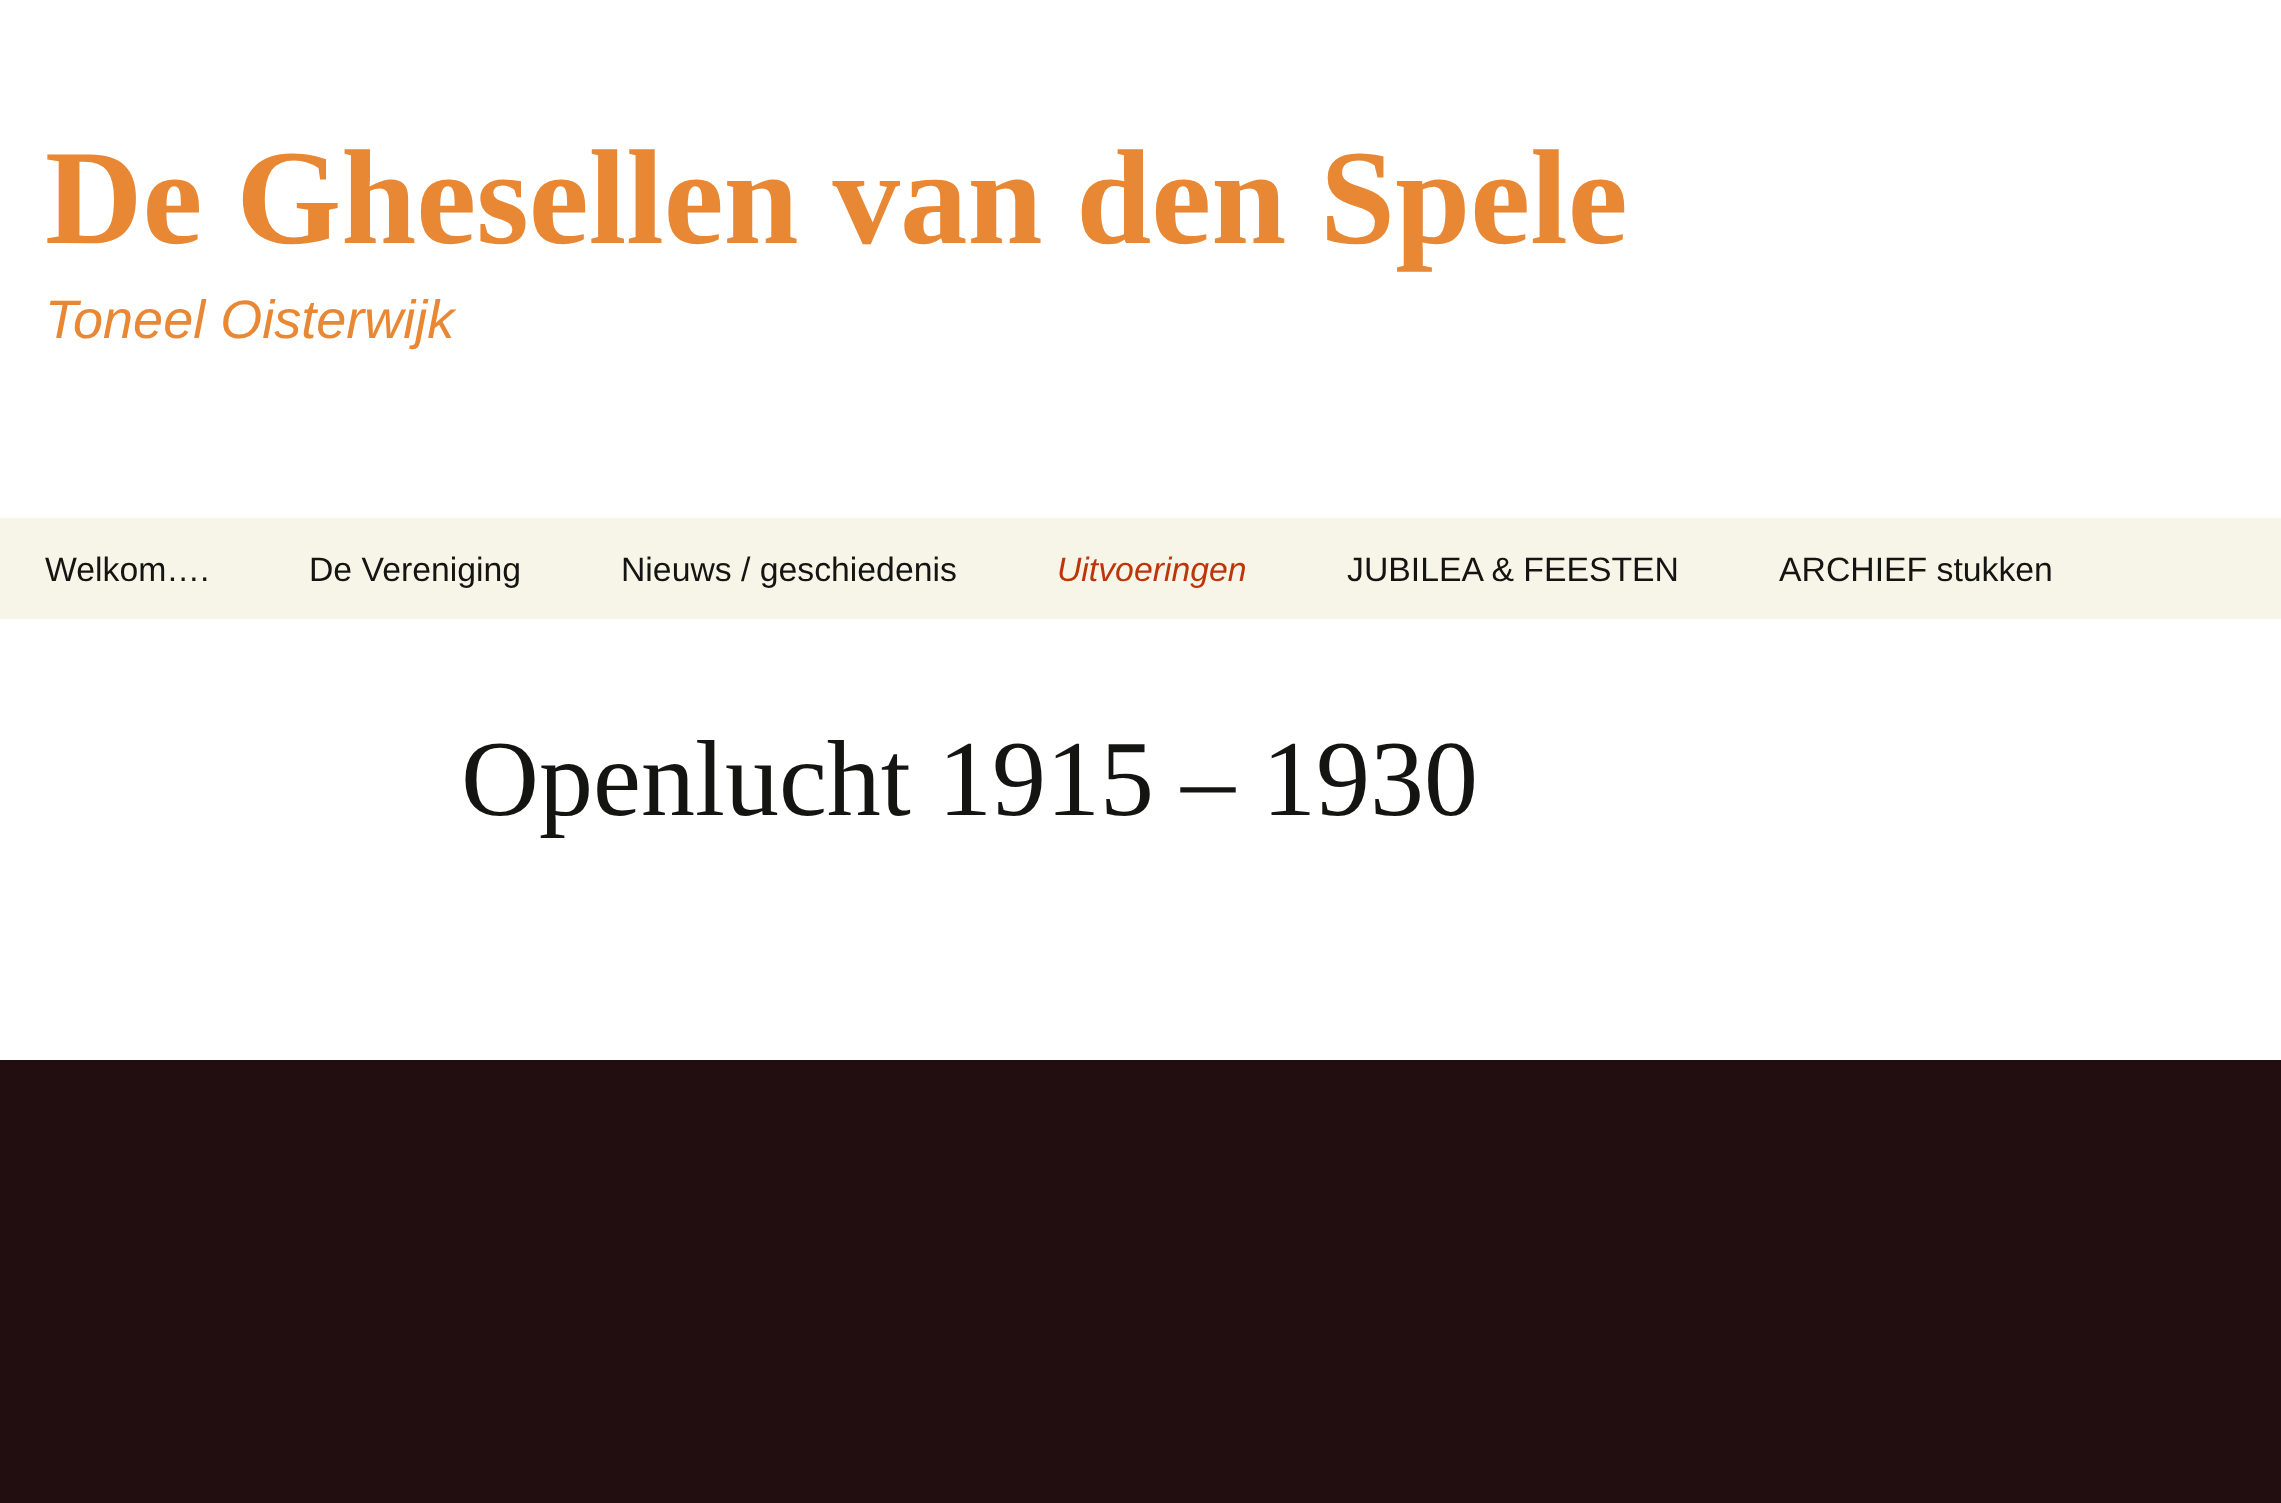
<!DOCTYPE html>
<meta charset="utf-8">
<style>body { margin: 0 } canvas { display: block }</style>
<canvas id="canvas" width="2281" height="1503"></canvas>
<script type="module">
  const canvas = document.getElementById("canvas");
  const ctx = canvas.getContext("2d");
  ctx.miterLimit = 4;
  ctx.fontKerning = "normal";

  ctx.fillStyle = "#ffffff";
  ctx.fillRect(0, 0, 2281, 1503);
  ctx.font = "bold 135px Liberation Serif";
  ctx.fillStyle = "#e88835";
  ctx.fillText("De Ghesellen van den Spele", 45, 243);
  ctx.font = "italic 54px Liberation Sans";
  ctx.fillText("Toneel Oisterwijk", 45, 338);
  ctx.fillStyle = "#f7f5e7";
  ctx.fillRect(0, 518, 2281, 101);
  ctx.font = "33.75px Liberation Sans";
  ctx.fillStyle = "#141412";
  ctx.fillText("Welkom….", 45, 581);
  ctx.fillText("De Vereniging", 309, 581);
  ctx.fillText("Nieuws / geschiedenis", 621, 581);
  ctx.font = "italic 33.75px Liberation Sans";
  ctx.fillStyle = "#bc360a";
  ctx.fillText("Uitvoeringen", 1057, 581);
  ctx.font = "33.75px Liberation Sans";
  ctx.fillStyle = "#141412";
  ctx.fillText("JUBILEA & FEESTEN", 1347, 581);
  ctx.fillText("ARCHIEF stukken", 1779, 581);
  ctx.font = "108px Liberation Serif";
  ctx.fillText("Openlucht 1915 – 1930", 461, 815);
  ctx.fillStyle = "#220e10";
  ctx.fillRect(0, 1060, 2281, 443);
</script>
